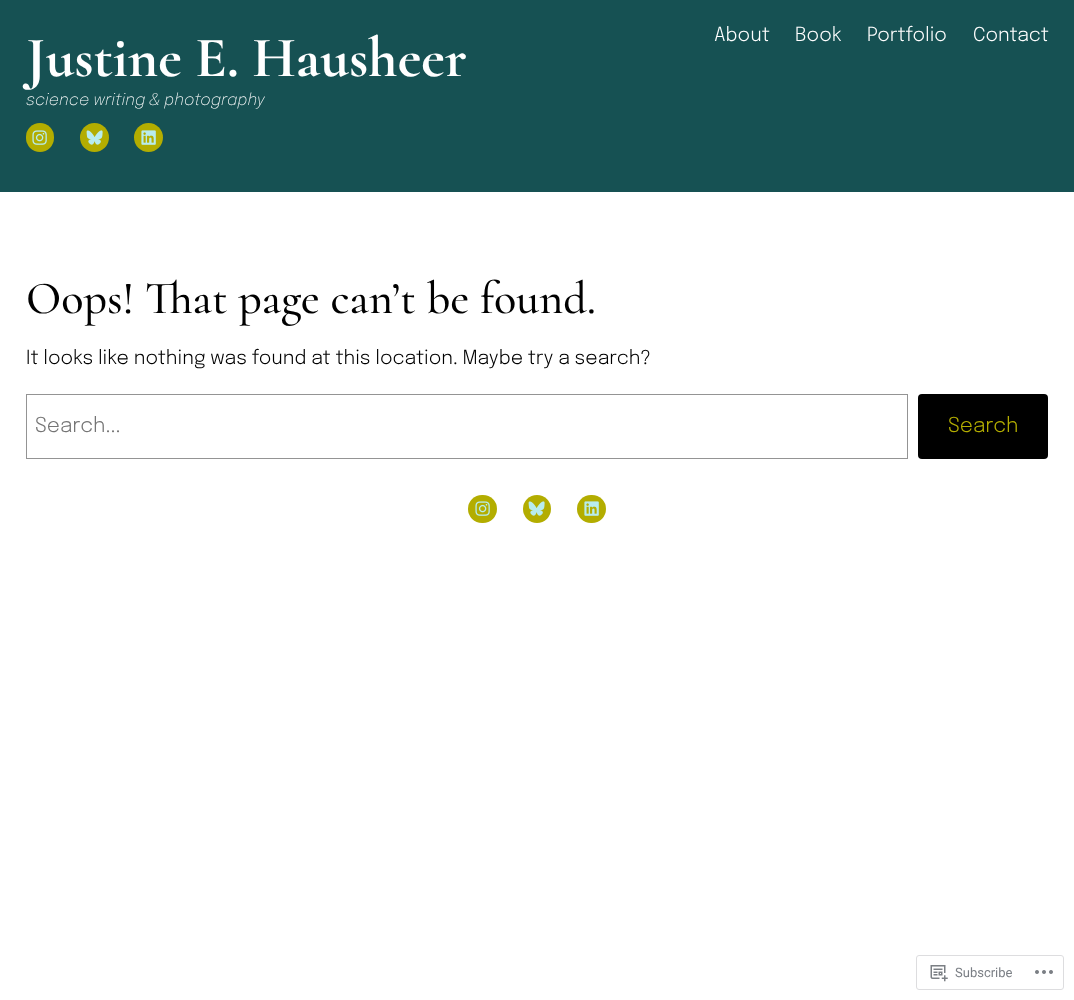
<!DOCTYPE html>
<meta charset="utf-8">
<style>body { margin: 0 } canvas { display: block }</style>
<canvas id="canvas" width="1074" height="1000"></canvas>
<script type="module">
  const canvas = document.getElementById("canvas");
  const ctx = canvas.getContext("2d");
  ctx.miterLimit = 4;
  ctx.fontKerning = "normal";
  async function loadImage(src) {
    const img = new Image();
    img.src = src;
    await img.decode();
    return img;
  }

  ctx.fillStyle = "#ffffff";
  ctx.fillRect(0, 0, 1074, 1000);
  ctx.fillStyle = "#165153";
  ctx.fillRect(0, 0, 1074, 192);
  ctx.font = "bold 57.25px Cormorant";
  ctx.fillStyle = "#ffffff";
  ctx.fillText("Justine E. Hausheer", 26, 76);
  ctx.font = "italic 200 16.1px Epilogue";
  ctx.fillText("science writing & photography", 26, 105);
  ctx.fillStyle = "#b3ad00";
  ctx.beginPath();
  ctx.roundRect(26, 123, 28, 29, 14);
  ctx.fill();
  ctx.drawImage(await loadImage("img1.png"), 32, 130, 15, 15);
  ctx.beginPath();
  ctx.arc(94.5, 137.5, 14.5, 0, Math.PI * 2);
  ctx.fill();
  ctx.drawImage(await loadImage("img2.png"), 86, 130, 17, 15);
  ctx.beginPath();
  ctx.arc(148.5, 137.5, 14.5, 0, Math.PI * 2);
  ctx.fill();
  ctx.drawImage(await loadImage("img3.png"), 141, 130, 15, 15);
  ctx.font = "300 19.25px Epilogue";
  ctx.fillStyle = "#ffffff";
  ctx.fillText("About", 714, 41);
  ctx.fillText("Book", 795, 41);
  ctx.fillText("Portfolio", 867, 41);
  ctx.fillText("Contact", 973, 41);
  ctx.font = "500 46.1px Cormorant";
  ctx.fillStyle = "#000000";
  ctx.fillText("Oops! That page can’t be found.", 26, 313);
  ctx.font = "300 19.25px Epilogue";
  ctx.fillText("It looks like nothing was found at this location. Maybe try a search?", 26, 364);
  ctx.strokeStyle = "#949494";
  ctx.strokeRect(26.5, 394.5, 881, 64);
  ctx.font = "300 20.5px Epilogue";
  ctx.fillStyle = "#757575";
  ctx.fillText("Search...", 35, 432);
  ctx.fillStyle = "#000000";
  ctx.beginPath();
  ctx.roundRect(918, 394, 130, 65, 4);
  ctx.fill();
  ctx.fillStyle = "#b3ad00";
  ctx.fillText("Search", 948, 432);
  ctx.beginPath();
  ctx.roundRect(468, 495, 29, 28, 14);
  ctx.fill();
  ctx.drawImage(await loadImage("img1.png"), 475, 501, 15, 15);
  ctx.beginPath();
  ctx.arc(537, 509, 14, 0, Math.PI * 2);
  ctx.fill();
  ctx.drawImage(await loadImage("img2.png"), 528, 501, 17, 15);
  ctx.beginPath();
  ctx.roundRect(577, 495, 29, 28, 14);
  ctx.fill();
  ctx.drawImage(await loadImage("img3.png"), 584, 501, 15, 15);
  ctx.beginPath();
  ctx.roundRect(916.5, 955.5, 147, 34, 2.5);
  ctx.strokeStyle = "#dddddf";
  ctx.stroke();
  ctx.drawImage(await loadImage("img4.png"), 930, 965, 18, 17);
  ctx.font = "13px Roboto";
  ctx.fillStyle = "#7b7f85";
  ctx.fillText("Subscribe", 955, 977);
  ctx.drawImage(await loadImage("img5.png"), 1035, 970, 18, 4);
</script>
